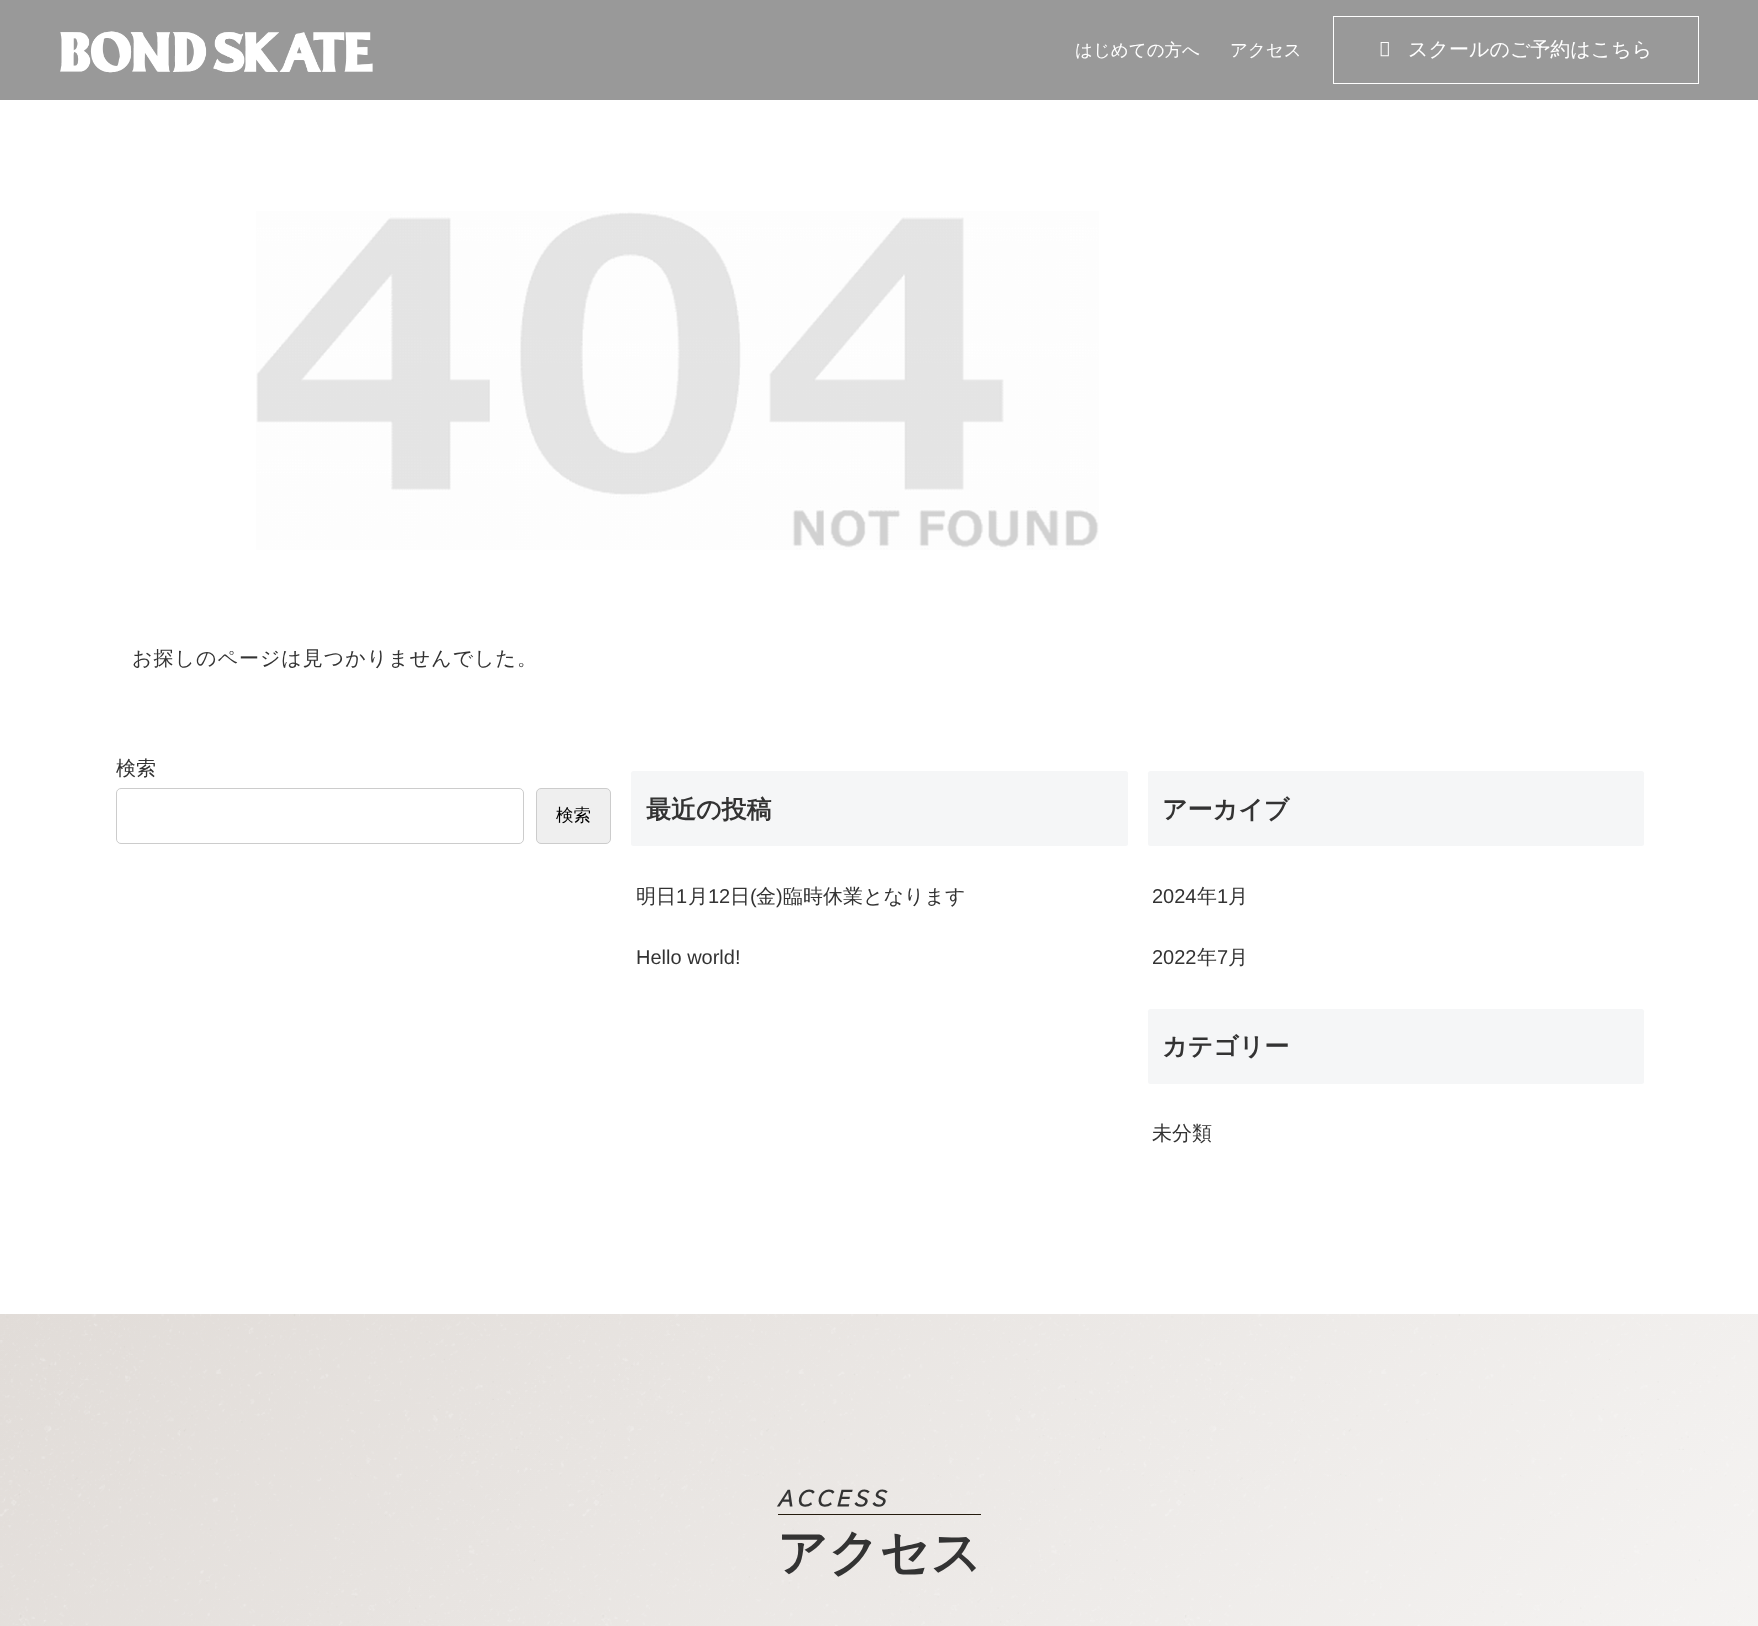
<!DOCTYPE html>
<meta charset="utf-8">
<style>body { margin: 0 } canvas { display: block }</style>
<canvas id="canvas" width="1758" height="1626"></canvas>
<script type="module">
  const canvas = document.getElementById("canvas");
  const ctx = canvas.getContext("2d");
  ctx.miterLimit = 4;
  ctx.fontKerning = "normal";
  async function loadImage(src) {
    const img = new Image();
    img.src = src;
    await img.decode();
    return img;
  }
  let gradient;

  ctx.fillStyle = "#ffffff";
  ctx.fillRect(0, 0, 1758, 1626);
  ctx.fillStyle = "#999999";
  ctx.fillRect(0, 0, 1758, 100);
  ctx.drawImage(await loadImage("img1.png"), 60, 31, 313, 42);
  ctx.font = "500 17.5px WenQuanYi Zen Hei";
  ctx.fillStyle = "#ffffff";
  ctx.fillText("はじめての方へ", 1075, 56);
  ctx.fillText("アクセス", 1230, 56);
  ctx.strokeStyle = "#ffffff";
  ctx.strokeRect(1333.5, 16.5, 365, 67);
  ctx.drawImage(await loadImage("img2.png"), 1380, 42, 9, 15);
  ctx.font = "500 20px WenQuanYi Zen Hei";
  ctx.fillText("スクールのご予約はこちら", 1408, 56);
  ctx.drawImage(await loadImage("img3.png"), 256, 211, 843, 339);
  ctx.letterSpacing = "1px";
  ctx.fillStyle = "#333333";
  ctx.fillText("お探しのページは見つかりませんでした。", 132, 665);
  ctx.letterSpacing = "0px";
  ctx.fillText("検索", 116, 775);
  ctx.beginPath();
  ctx.roundRect(116.5, 788.5, 407, 55, 4.5);
  ctx.strokeStyle = "#cccccc";
  ctx.stroke();
  ctx.fillStyle = "#efefef";
  ctx.beginPath();
  ctx.roundRect(536.5, 788.5, 74, 55, 4.5);
  ctx.fill();
  ctx.stroke();
  ctx.font = "500 17.5px WenQuanYi Zen Hei";
  ctx.fillStyle = "#000000";
  ctx.fillText("検索", 556, 821);
  ctx.fillStyle = "#f5f6f7";
  ctx.beginPath();
  ctx.roundRect(631, 771, 497, 75, 2.5);
  ctx.fill();
  ctx.font = "bold 25px WenQuanYi Zen Hei";
  ctx.fillStyle = "#333333";
  ctx.fillText("最近の投稿", 646, 818);
  ctx.font = "500 20px WenQuanYi Zen Hei";
  ctx.fillText("明日", 636, 903);
  ctx.font = "20px Liberation Sans";
  ctx.fillText("1", 676, 903);
  ctx.font = "500 20px WenQuanYi Zen Hei";
  ctx.fillText("月", 688, 903);
  ctx.font = "20px Liberation Sans";
  ctx.fillText("12", 708, 903);
  ctx.font = "500 20px WenQuanYi Zen Hei";
  ctx.fillText("日", 730, 903);
  ctx.font = "20px Liberation Sans";
  ctx.fillText("(", 750, 903);
  ctx.font = "500 20px WenQuanYi Zen Hei";
  ctx.fillText("金", 756, 903);
  ctx.font = "20px Liberation Sans";
  ctx.fillText(")", 776, 903);
  ctx.font = "500 20px WenQuanYi Zen Hei";
  ctx.fillText("臨時休業となります", 783, 903);
  ctx.font = "20px Liberation Sans";
  ctx.fillText("Hello world!", 636, 964);
  ctx.fillStyle = "#f5f6f7";
  ctx.beginPath();
  ctx.roundRect(1148, 771, 496, 75, 2.5);
  ctx.fill();
  ctx.font = "bold 25px WenQuanYi Zen Hei";
  ctx.fillStyle = "#333333";
  ctx.fillText("アーカイブ", 1162, 818);
  ctx.font = "20px Liberation Sans";
  ctx.fillText("2024", 1152, 903);
  ctx.font = "500 20px WenQuanYi Zen Hei";
  ctx.fillText("年", 1197, 903);
  ctx.font = "20px Liberation Sans";
  ctx.fillText("1", 1217, 903);
  ctx.font = "500 20px WenQuanYi Zen Hei";
  ctx.fillText("月", 1228, 903);
  ctx.font = "20px Liberation Sans";
  ctx.fillText("2022", 1152, 964);
  ctx.font = "500 20px WenQuanYi Zen Hei";
  ctx.fillText("年", 1197, 964);
  ctx.font = "20px Liberation Sans";
  ctx.fillText("7", 1217, 964);
  ctx.font = "500 20px WenQuanYi Zen Hei";
  ctx.fillText("月", 1228, 964);
  ctx.fillStyle = "#f5f6f7";
  ctx.beginPath();
  ctx.roundRect(1148, 1009, 496, 75, 2.5);
  ctx.fill();
  ctx.font = "bold 25px WenQuanYi Zen Hei";
  ctx.fillStyle = "#333333";
  ctx.fillText("カテゴリー", 1162, 1055);
  ctx.font = "500 20px WenQuanYi Zen Hei";
  ctx.fillText("未分類", 1152, 1140);
  gradient = ctx.createLinearGradient(1668, 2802, 90, 1223);
  gradient.addColorStop(0, "#ffffff");
  gradient.addColorStop(1, "#e1dcd8");
  ctx.fillStyle = gradient;
  ctx.fillRect(0, 1314, 1758, 312);
  ctx.drawImage(await loadImage("img4.png"), 0, 1314, 1754, 312);
  ctx.fillStyle = "#251b0e";
  ctx.fillRect(778, 1514, 203, 1);
  ctx.letterSpacing = "3.75px";
  ctx.font = "italic bold 20px BIZ UDPGothic";
  ctx.fillStyle = "#333333";
  ctx.fillText("ACCESS", 777, 1506);
  ctx.letterSpacing = "0px";
  ctx.font = "bold 50px WenQuanYi Zen Hei";
  ctx.fillText("アクセス", 777, 1570);
</script>
